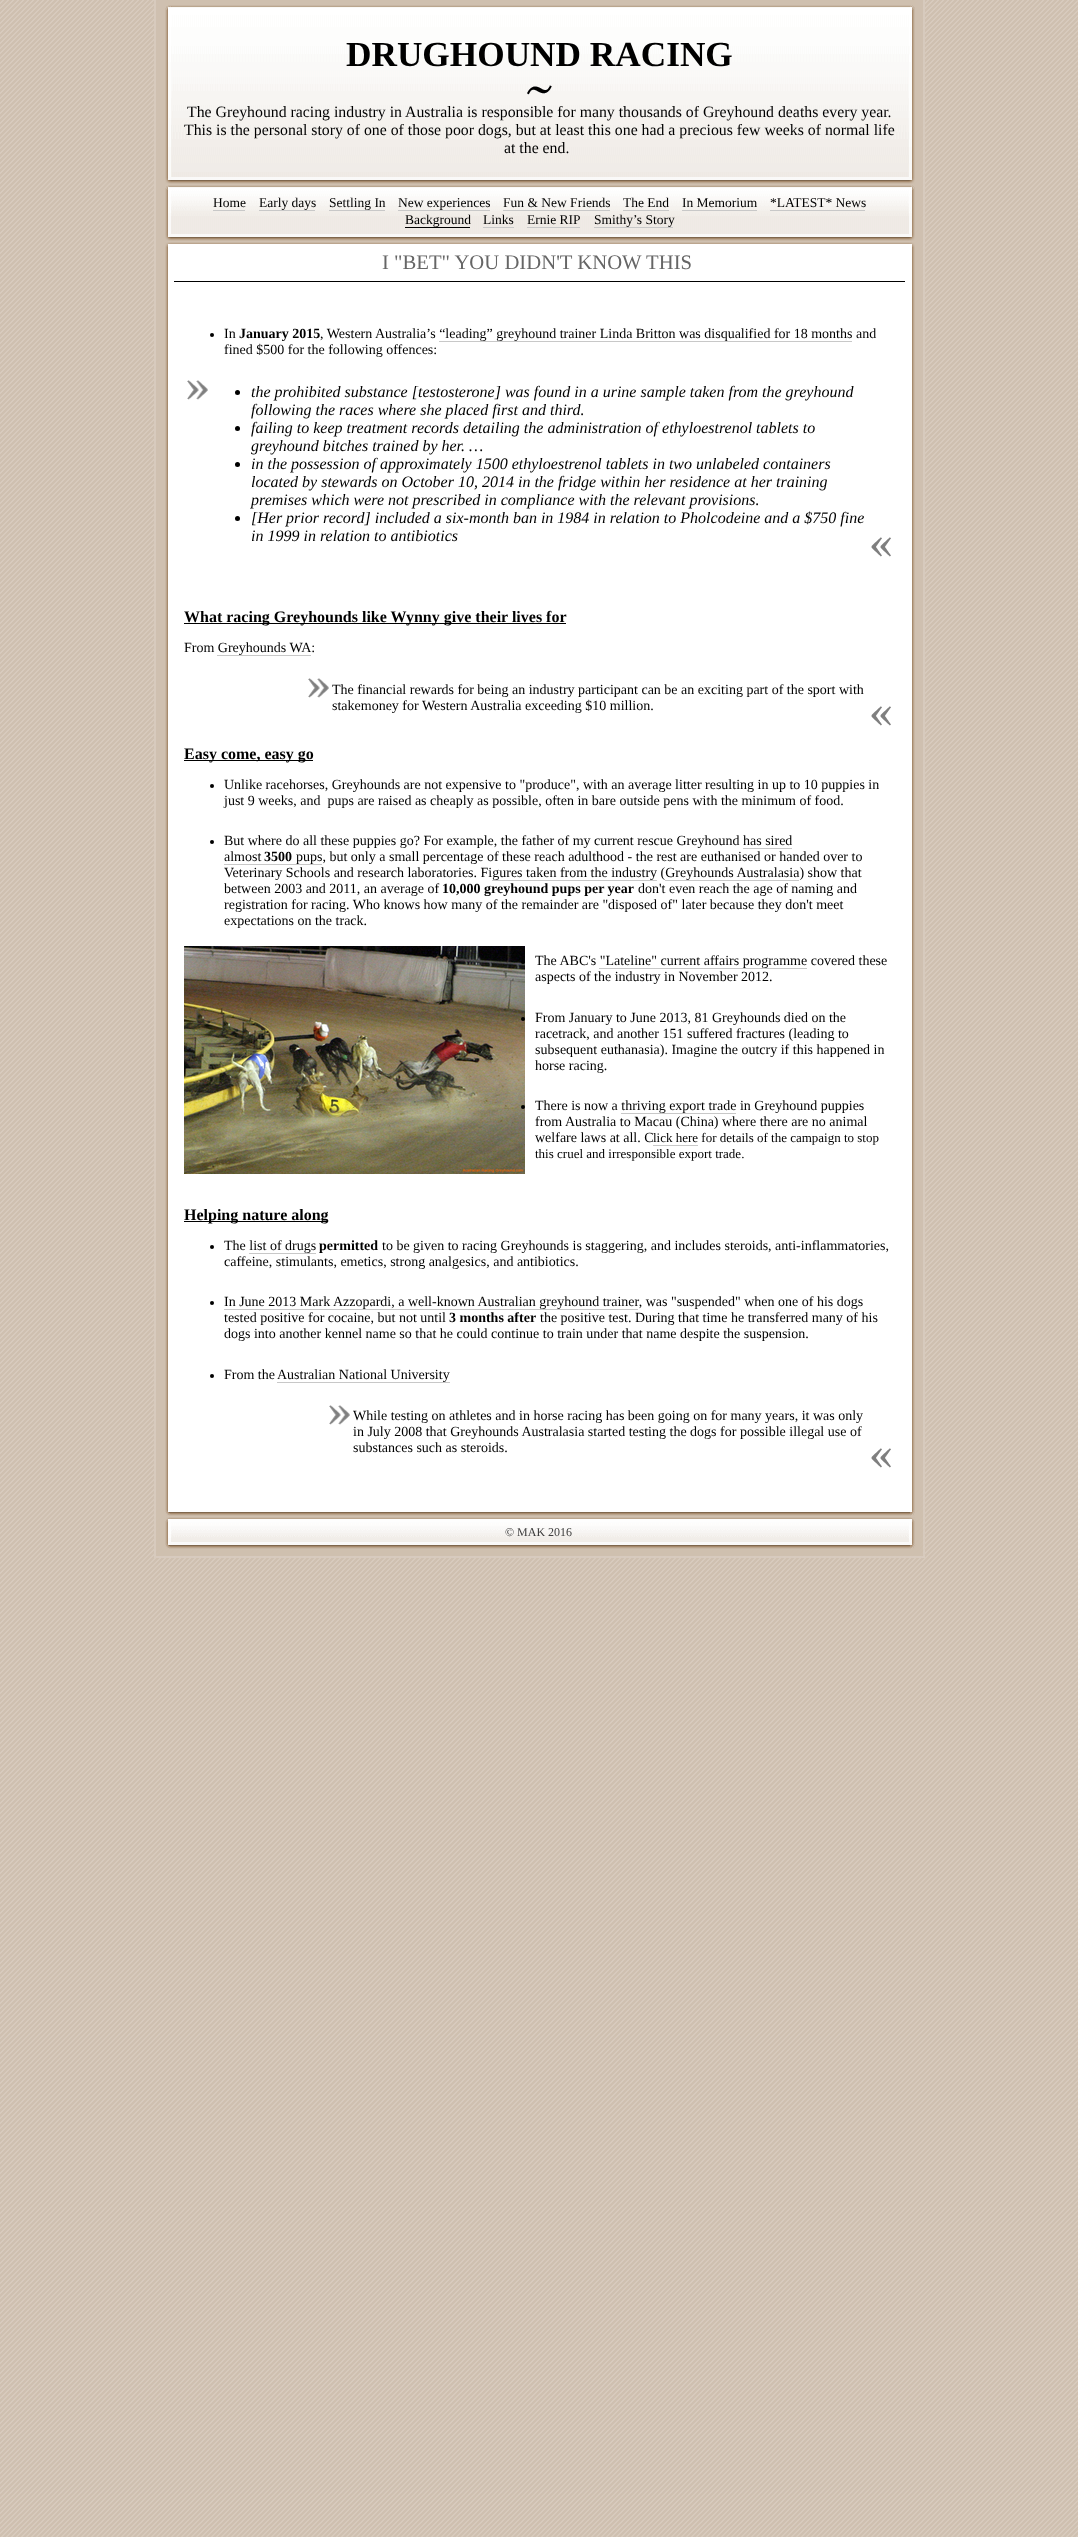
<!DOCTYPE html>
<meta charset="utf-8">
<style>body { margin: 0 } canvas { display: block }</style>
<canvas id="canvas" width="1078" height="2537"></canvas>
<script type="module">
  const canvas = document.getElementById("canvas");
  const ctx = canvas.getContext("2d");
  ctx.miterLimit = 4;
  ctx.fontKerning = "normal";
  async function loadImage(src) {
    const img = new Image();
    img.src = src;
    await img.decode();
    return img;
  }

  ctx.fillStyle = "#ffffff";
  ctx.fillRect(0, 0, 1078, 2537);
  ctx.drawImage(await loadImage("img1.png"), 0, 0, 1078, 2537);
  ctx.drawImage(await loadImage("img2.png"), 154, 0, 771, 1558);
  ctx.drawImage(await loadImage("img3.png"), 165, 0, 750, 234);
  ctx.drawImage(await loadImage("img4.png"), 165, 177, 750, 7);
  ctx.font = "bold 35.25px Liberation Serif";
  ctx.fillStyle = "#000000";
  ctx.fillText("DRUGHOUND RACING", 346, 66);
  ctx.drawImage(await loadImage("img5.png"), 527, 85, 25, 10);
  ctx.font = "15.8px Liberation Serif";
  ctx.fillText("The Greyhound racing industry in Australia is responsible for many thousands of Greyhound deaths every year.", 187, 117);
  ctx.fillText("This is the personal story of one of those poor dogs, but at least this one had a precious few weeks of normal life", 184, 135);
  ctx.fillText("at the end.", 504, 153);
  ctx.drawImage(await loadImage("img6.png"), 165, 184, 750, 32);
  ctx.drawImage(await loadImage("img4.png"), 165, 234, 750, 7);
  ctx.font = "13.5px Liberation Serif";
  ctx.fillText("Home", 213, 207);
  ctx.fillStyle = "#c8c8c8";
  ctx.fillRect(213, 210, 32, 1);
  ctx.fillStyle = "#000000";
  ctx.fillText("Early days", 259, 207);
  ctx.fillStyle = "#c8c8c8";
  ctx.fillRect(259, 210, 56, 1);
  ctx.fillStyle = "#000000";
  ctx.fillText("Settling In", 329, 207);
  ctx.fillStyle = "#c8c8c8";
  ctx.fillRect(329, 210, 56, 1);
  ctx.fillStyle = "#000000";
  ctx.fillText("New experiences", 398, 207);
  ctx.fillStyle = "#c8c8c8";
  ctx.fillRect(398, 210, 92, 1);
  ctx.fillStyle = "#000000";
  ctx.fillText("Fun & New Friends", 503, 207);
  ctx.fillStyle = "#c8c8c8";
  ctx.fillRect(503, 210, 107, 1);
  ctx.fillStyle = "#000000";
  ctx.fillText("The End", 623, 207);
  ctx.fillStyle = "#c8c8c8";
  ctx.fillRect(623, 210, 46, 1);
  ctx.fillStyle = "#000000";
  ctx.fillText("In Memorium", 682, 207);
  ctx.fillStyle = "#c8c8c8";
  ctx.fillRect(682, 210, 75, 1);
  ctx.fillStyle = "#000000";
  ctx.fillText("*LATEST* News", 770, 207);
  ctx.fillStyle = "#c8c8c8";
  ctx.fillRect(770, 210, 95, 1);
  ctx.fillStyle = "#000000";
  ctx.fillText("Background", 405, 224);
  ctx.fillRect(405, 227, 65, 1);
  ctx.fillText("Links", 483, 224);
  ctx.fillStyle = "#c8c8c8";
  ctx.fillRect(483, 227, 31, 1);
  ctx.fillStyle = "#000000";
  ctx.fillText("Ernie RIP", 527, 224);
  ctx.fillStyle = "#c8c8c8";
  ctx.fillRect(527, 227, 53, 1);
  ctx.fillStyle = "#000000";
  ctx.fillText("Smithy’s Story", 594, 224);
  ctx.fillStyle = "#c8c8c8";
  ctx.fillRect(594, 227, 79, 1);
  ctx.drawImage(await loadImage("img7.png"), 165, 241, 750, 6);
  ctx.fillStyle = "#000000";
  ctx.fillRect(174, 281, 731, 1);
  ctx.font = "20.7px Liberation Serif";
  ctx.fillStyle = "#666666";
  ctx.fillText("I \"BET\" YOU DIDN'T KNOW THIS", 382, 269);
  ctx.fillStyle = "#000000";
  ctx.beginPath();
  ctx.arc(212, 335, 2, 0, Math.PI * 2);
  ctx.fill();
  ctx.font = "14px Liberation Serif";
  ctx.fillText("In", 224, 338);
  ctx.font = "bold 14px Liberation Serif";
  ctx.fillText("January 2015", 239, 338);
  ctx.font = "14px Liberation Serif";
  ctx.fillText(", Western Australia’s “leading” greyhound trainer Linda Britton was disqualified for 18 months and", 320, 338);
  ctx.fillStyle = "#c8c8c8";
  ctx.fillRect(439, 341, 413, 1);
  ctx.fillStyle = "#000000";
  ctx.fillText("fined $500 for the following offences:", 224, 354);
  ctx.drawImage(await loadImage("img8.png"), 187, 380, 21, 20);
  ctx.beginPath();
  ctx.arc(237.5, 392.5, 2.5, 0, Math.PI * 2);
  ctx.fill();
  ctx.font = "italic 16px Liberation Serif";
  ctx.fillText("the prohibited substance [testosterone] was found in a urine sample taken from the greyhound", 251, 397);
  ctx.fillText("following the races where she placed first and third.", 251, 415);
  ctx.beginPath();
  ctx.arc(237.5, 428.5, 2.5, 0, Math.PI * 2);
  ctx.fill();
  ctx.fillText("failing to keep treatment records detailing the administration of ethyloestrenol tablets to", 251, 433);
  ctx.fillText("greyhound bitches trained by her. …", 251, 451);
  ctx.beginPath();
  ctx.arc(237.5, 464.5, 2.5, 0, Math.PI * 2);
  ctx.fill();
  ctx.fillText("in the possession of approximately 1500 ethyloestrenol tablets in two unlabeled containers", 251, 469);
  ctx.fillText("located by stewards on October 10, 2014 in the fridge within her residence at her training", 251, 487);
  ctx.fillText("premises which were not prescribed in compliance with the relevant provisions.", 251, 505);
  ctx.beginPath();
  ctx.arc(237.5, 518.5, 2.5, 0, Math.PI * 2);
  ctx.fill();
  ctx.fillText("[Her prior record] included a six-month ban in 1984 in relation to Pholcodeine and a $750 fine", 251, 523);
  ctx.fillText("in 1999 in relation to antibiotics", 251, 541);
  ctx.drawImage(await loadImage("img9.png"), 871, 537, 20, 20);
  ctx.fillRect(184, 623, 382, 1);
  ctx.font = "bold 16px Liberation Serif";
  ctx.fillText("What racing Greyhounds like Wynny give their lives for", 184, 622);
  ctx.font = "14px Liberation Serif";
  ctx.fillText("From Greyhounds WA:", 184, 652);
  ctx.fillStyle = "#c8c8c8";
  ctx.fillRect(217, 655, 94, 1);
  ctx.drawImage(await loadImage("img8.png"), 308, 678, 21, 20);
  ctx.fillStyle = "#000000";
  ctx.fillText("The financial rewards for being an industry participant can be an exciting part of the sport with", 332, 694);
  ctx.fillText("stakemoney for Western Australia exceeding $10 million.", 332, 710);
  ctx.drawImage(await loadImage("img9.png"), 871, 706, 20, 20);
  ctx.fillRect(184, 760, 129, 1);
  ctx.font = "bold 16px Liberation Serif";
  ctx.fillText("Easy come, easy go", 184, 759);
  ctx.beginPath();
  ctx.arc(212, 786, 2, 0, Math.PI * 2);
  ctx.fill();
  ctx.font = "14px Liberation Serif";
  ctx.fillText("Unlike racehorses, Greyhounds are not expensive to \"produce\", with an average litter resulting in up to 10 puppies in", 224, 789);
  ctx.fillText("just 9 weeks, and  pups are raised as cheaply as possible, often in bare outside pens with the minimum of food.", 224, 805);
  ctx.beginPath();
  ctx.arc(212, 842, 2, 0, Math.PI * 2);
  ctx.fill();
  ctx.fillText("But where do all these puppies go? For example, the father of my current rescue Greyhound has sired", 224, 845);
  ctx.fillStyle = "#c8c8c8";
  ctx.fillRect(743, 848, 49, 1);
  ctx.fillStyle = "#000000";
  ctx.fillText("almost", 224, 861);
  ctx.font = "bold 14px Liberation Serif";
  ctx.fillText("3500", 264, 861);
  ctx.font = "14px Liberation Serif";
  ctx.fillText("pups, but only a small percentage of these reach adulthood - the rest are euthanised or handed over to", 296, 861);
  ctx.fillStyle = "#c8c8c8";
  ctx.fillRect(224, 864, 98, 1);
  ctx.fillStyle = "#000000";
  ctx.fillText("Veterinary Schools and research laboratories. Figures taken from the industry (Greyhounds Australasia) show that", 224, 877);
  ctx.fillStyle = "#c8c8c8";
  ctx.fillRect(492, 880, 165, 1);
  ctx.fillRect(665, 880, 134, 1);
  ctx.fillStyle = "#000000";
  ctx.fillText("between 2003 and 2011, an average of", 224, 893);
  ctx.font = "bold 14px Liberation Serif";
  ctx.fillText("10,000 greyhound pups per year", 442, 893);
  ctx.font = "14px Liberation Serif";
  ctx.fillText("don't even reach the age of naming and", 638, 893);
  ctx.fillText("registration for racing. Who knows how many of the remainder are \"disposed of\" later because they don't meet", 224, 909);
  ctx.fillText("expectations on the track.", 224, 925);
  ctx.drawImage(await loadImage("img10.png"), 184, 946, 341, 228);
  ctx.beginPath();
  ctx.arc(523, 962, 2, 0, Math.PI * 2);
  ctx.fill();
  ctx.fillText("The ABC's \"Lateline\" current affairs programme covered these", 535, 965);
  ctx.fillStyle = "#c8c8c8";
  ctx.fillRect(599, 968, 208, 1);
  ctx.fillStyle = "#000000";
  ctx.fillText("aspects of the industry in November 2012.", 535, 981);
  ctx.beginPath();
  ctx.arc(523, 1019, 2, 0, Math.PI * 2);
  ctx.fill();
  ctx.fillText("From January to June 2013, 81 Greyhounds died on the", 535, 1022);
  ctx.fillText("racetrack, and another 151 suffered fractures (leading to", 535, 1038);
  ctx.fillText("subsequent euthanasia). Imagine the outcry if this happened in", 535, 1054);
  ctx.fillText("horse racing.", 535, 1070);
  ctx.beginPath();
  ctx.arc(523, 1107, 2, 0, Math.PI * 2);
  ctx.fill();
  ctx.fillText("There is now a thriving export trade in Greyhound puppies", 535, 1110);
  ctx.fillStyle = "#c8c8c8";
  ctx.fillRect(621, 1113, 115, 1);
  ctx.fillStyle = "#000000";
  ctx.fillText("from Australia to Macau (China) where there are no animal", 535, 1126);
  ctx.fillText("welfare laws at all. C", 535, 1142);
  ctx.font = "13px Liberation Serif";
  ctx.fillText("lick here for details of the campaign to stop", 653, 1142);
  ctx.fillStyle = "#c8c8c8";
  ctx.fillRect(653, 1145, 45, 1);
  ctx.fillStyle = "#000000";
  ctx.fillText("this cruel and irresponsible export trade.", 535, 1158);
  ctx.fillRect(184, 1221, 144, 1);
  ctx.font = "bold 16px Liberation Serif";
  ctx.fillText("Helping nature along", 184, 1220);
  ctx.beginPath();
  ctx.arc(212, 1247, 2, 0, Math.PI * 2);
  ctx.fill();
  ctx.font = "14px Liberation Serif";
  ctx.fillText("The list of drugs", 224, 1250);
  ctx.font = "bold 14px Liberation Serif";
  ctx.fillText("permitted", 319, 1250);
  ctx.font = "14px Liberation Serif";
  ctx.fillText("to be given to racing Greyhounds is staggering, and includes steroids, anti-inflammatories,", 382, 1250);
  ctx.fillStyle = "#c8c8c8";
  ctx.fillRect(249, 1253, 67, 1);
  ctx.fillStyle = "#000000";
  ctx.fillText("caffeine, stimulants, emetics, strong analgesics, and antibiotics.", 224, 1266);
  ctx.beginPath();
  ctx.arc(212, 1303, 2, 0, Math.PI * 2);
  ctx.fill();
  ctx.fillText("In June 2013 Mark Azzopardi, a well-known Australian greyhound trainer, was \"suspended\" when one of his dogs", 224, 1306);
  ctx.fillStyle = "#c8c8c8";
  ctx.fillRect(224, 1309, 414, 1);
  ctx.fillStyle = "#000000";
  ctx.fillText("tested positive for cocaine, but not until", 224, 1322);
  ctx.font = "bold 14px Liberation Serif";
  ctx.fillText("3 months after", 449, 1322);
  ctx.font = "14px Liberation Serif";
  ctx.fillText("the positive test. During that time he transferred many of his", 540, 1322);
  ctx.fillText("dogs into another kennel name so that he could continue to train under that name despite the suspension.", 224, 1338);
  ctx.beginPath();
  ctx.arc(212, 1376, 2, 0, Math.PI * 2);
  ctx.fill();
  ctx.fillText("From the", 224, 1379);
  ctx.fillText("Australian National University", 277, 1379);
  ctx.fillStyle = "#c8c8c8";
  ctx.fillRect(277, 1382, 173, 1);
  ctx.drawImage(await loadImage("img8.png"), 329, 1405, 21, 20);
  ctx.fillStyle = "#000000";
  ctx.fillText("While testing on athletes and in horse racing has been going on for many years, it was only", 353, 1420);
  ctx.fillText("in July 2008 that Greyhounds Australasia started testing the dogs for possible illegal use of", 353, 1436);
  ctx.fillText("substances such as steroids.", 353, 1452);
  ctx.drawImage(await loadImage("img9.png"), 871, 1448, 20, 20);
  ctx.drawImage(await loadImage("img11.png"), 156, 1510, 767, 48);
  ctx.font = "12px Liberation Serif";
  ctx.fillStyle = "#3d3d3d";
  ctx.fillText("© MAK 2016", 505, 1536);
</script>
